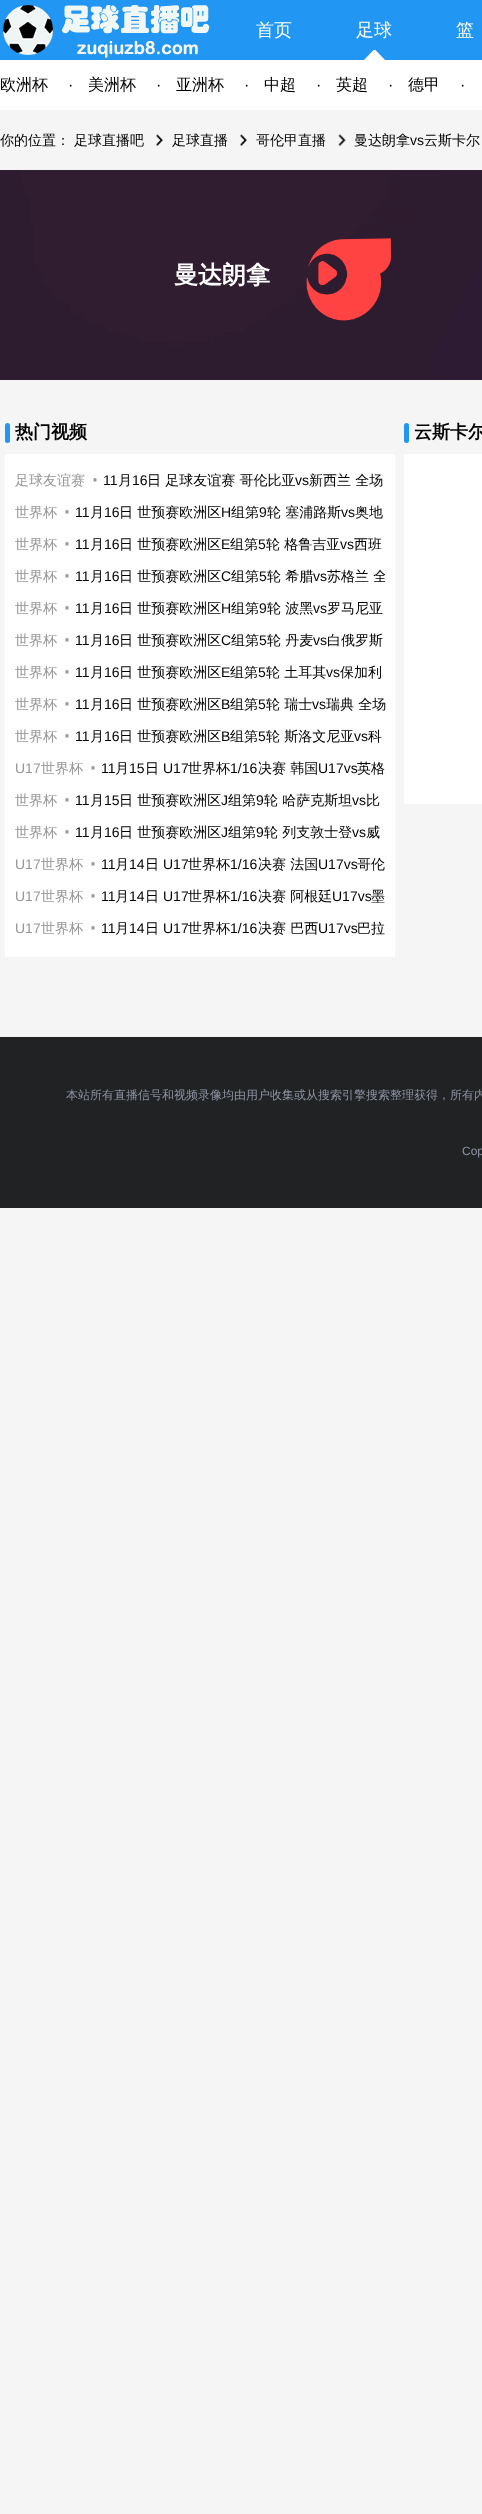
<!DOCTYPE html>
<meta charset="utf-8">
<style>body { margin: 0 } canvas { display: block }</style>
<canvas id="canvas" width="482" height="2514"></canvas>
<script type="module">
  const canvas = document.getElementById("canvas");
  const ctx = canvas.getContext("2d");
  ctx.miterLimit = 4;
  ctx.fontKerning = "normal";
  async function loadImage(src) {
    const img = new Image();
    img.src = src;
    await img.decode();
    return img;
  }

  ctx.fillStyle = "#f5f5f5";
  ctx.fillRect(0, 0, 482, 2514);
  ctx.fillStyle = "#2196f3";
  ctx.fillRect(0, 0, 482, 60);
  ctx.drawImage(await loadImage("img1.png"), 3, 5, 207, 53);
  ctx.font = "500 18px WenQuanYi Zen Hei";
  ctx.fillStyle = "#ffffff";
  ctx.fillText("首页", 256, 36);
  ctx.drawImage(await loadImage("img2.png"), 364, 49, 21, 11);
  ctx.fillText("足球", 356, 36);
  ctx.fillText("篮", 456, 36);
  ctx.fillRect(0, 60, 482, 50);
  ctx.font = "500 16px WenQuanYi Zen Hei";
  ctx.fillStyle = "#000000";
  ctx.fillText("欧洲杯", 0, 90);
  ctx.font = "16px Liberation Sans";
  ctx.fillText("·", 68, 90);
  ctx.font = "500 16px WenQuanYi Zen Hei";
  ctx.fillText("美洲杯", 88, 90);
  ctx.font = "16px Liberation Sans";
  ctx.fillText("·", 156, 90);
  ctx.font = "500 16px WenQuanYi Zen Hei";
  ctx.fillText("亚洲杯", 176, 90);
  ctx.font = "16px Liberation Sans";
  ctx.fillText("·", 244, 90);
  ctx.font = "500 16px WenQuanYi Zen Hei";
  ctx.fillText("中超", 264, 90);
  ctx.font = "16px Liberation Sans";
  ctx.fillText("·", 316, 90);
  ctx.font = "500 16px WenQuanYi Zen Hei";
  ctx.fillText("英超", 336, 90);
  ctx.font = "16px Liberation Sans";
  ctx.fillText("·", 388, 90);
  ctx.font = "500 16px WenQuanYi Zen Hei";
  ctx.fillText("德甲", 408, 90);
  ctx.font = "16px Liberation Sans";
  ctx.fillText("·", 460, 90);
  ctx.font = "500 14px WenQuanYi Zen Hei";
  ctx.fillText("你的位置：", 0, 145);
  ctx.fillText("足球直播吧", 74, 145);
  ctx.drawImage(await loadImage("img3.png"), 156, 134, 7, 12);
  ctx.fillText("足球直播", 172, 145);
  ctx.drawImage(await loadImage("img3.png"), 240, 134, 7, 12);
  ctx.fillText("哥伦甲直播", 256, 145);
  ctx.drawImage(await loadImage("img4.png"), 338, 134, 8, 12);
  ctx.fillText("曼达朗拿", 354, 145);
  ctx.font = "14px Liberation Sans";
  ctx.fillText("vs", 410, 145);
  ctx.font = "500 14px WenQuanYi Zen Hei";
  ctx.fillText("云斯卡尔", 424, 145);
  ctx.drawImage(await loadImage("img5.png"), 0, 170, 482, 210);
  ctx.font = "bold 24px WenQuanYi Zen Hei";
  ctx.fillStyle = "#ffffff";
  ctx.fillText("曼达朗拿", 174, 283);
  ctx.drawImage(await loadImage("img6.png"), 306, 238, 86, 83);
  ctx.fillStyle = "#2196f3";
  ctx.beginPath();
  ctx.roundRect(5, 423, 5, 20, 2.5);
  ctx.fill();
  ctx.font = "bold 18px WenQuanYi Zen Hei";
  ctx.fillStyle = "#000000";
  ctx.fillText("热门视频", 15, 438);
  ctx.fillStyle = "#ffffff";
  ctx.fillRect(5, 454, 390, 503);
  ctx.font = "500 14px WenQuanYi Zen Hei";
  ctx.fillStyle = "#959595";
  ctx.fillText("足球友谊赛", 15, 485);
  ctx.font = "30px Liberation Sans";
  ctx.fillText("·", 90, 488);
  ctx.font = "14px Liberation Sans";
  ctx.fillStyle = "#000000";
  ctx.fillText("11", 103, 485);
  ctx.font = "500 14px WenQuanYi Zen Hei";
  ctx.fillText("月", 118, 485);
  ctx.font = "14px Liberation Sans";
  ctx.fillText("16", 132, 485);
  ctx.font = "500 14px WenQuanYi Zen Hei";
  ctx.fillText("日 足球友谊赛 哥伦比亚", 147, 485);
  ctx.font = "14px Liberation Sans";
  ctx.fillText("vs", 295, 485);
  ctx.font = "500 14px WenQuanYi Zen Hei";
  ctx.fillText("新西兰 全场", 309, 485);
  ctx.fillStyle = "#959595";
  ctx.fillText("世界杯", 15, 517);
  ctx.font = "30px Liberation Sans";
  ctx.fillText("·", 62, 520);
  ctx.font = "14px Liberation Sans";
  ctx.fillStyle = "#000000";
  ctx.fillText("11", 75, 517);
  ctx.font = "500 14px WenQuanYi Zen Hei";
  ctx.fillText("月", 90, 517);
  ctx.font = "14px Liberation Sans";
  ctx.fillText("16", 104, 517);
  ctx.font = "500 14px WenQuanYi Zen Hei";
  ctx.fillText("日 世预赛欧洲区", 119, 517);
  ctx.font = "14px Liberation Sans";
  ctx.fillText("H", 221, 517);
  ctx.font = "500 14px WenQuanYi Zen Hei";
  ctx.fillText("组第", 231, 517);
  ctx.font = "14px Liberation Sans";
  ctx.fillText("9", 259, 517);
  ctx.font = "500 14px WenQuanYi Zen Hei";
  ctx.fillText("轮 塞浦路斯", 267, 517);
  ctx.font = "14px Liberation Sans";
  ctx.fillText("vs", 341, 517);
  ctx.font = "500 14px WenQuanYi Zen Hei";
  ctx.fillText("奥地", 355, 517);
  ctx.fillStyle = "#959595";
  ctx.fillText("世界杯", 15, 549);
  ctx.font = "30px Liberation Sans";
  ctx.fillText("·", 62, 552);
  ctx.font = "14px Liberation Sans";
  ctx.fillStyle = "#000000";
  ctx.fillText("11", 75, 549);
  ctx.font = "500 14px WenQuanYi Zen Hei";
  ctx.fillText("月", 90, 549);
  ctx.font = "14px Liberation Sans";
  ctx.fillText("16", 104, 549);
  ctx.font = "500 14px WenQuanYi Zen Hei";
  ctx.fillText("日 世预赛欧洲区", 119, 549);
  ctx.font = "14px Liberation Sans";
  ctx.fillText("E", 221, 549);
  ctx.font = "500 14px WenQuanYi Zen Hei";
  ctx.fillText("组第", 230, 549);
  ctx.font = "14px Liberation Sans";
  ctx.fillText("5", 258, 549);
  ctx.font = "500 14px WenQuanYi Zen Hei";
  ctx.fillText("轮 格鲁吉亚", 266, 549);
  ctx.font = "14px Liberation Sans";
  ctx.fillText("vs", 340, 549);
  ctx.font = "500 14px WenQuanYi Zen Hei";
  ctx.fillText("西班", 354, 549);
  ctx.fillStyle = "#959595";
  ctx.fillText("世界杯", 15, 581);
  ctx.font = "30px Liberation Sans";
  ctx.fillText("·", 62, 584);
  ctx.font = "14px Liberation Sans";
  ctx.fillStyle = "#000000";
  ctx.fillText("11", 75, 581);
  ctx.font = "500 14px WenQuanYi Zen Hei";
  ctx.fillText("月", 90, 581);
  ctx.font = "14px Liberation Sans";
  ctx.fillText("16", 104, 581);
  ctx.font = "500 14px WenQuanYi Zen Hei";
  ctx.fillText("日 世预赛欧洲区", 119, 581);
  ctx.font = "14px Liberation Sans";
  ctx.fillText("C", 221, 581);
  ctx.font = "500 14px WenQuanYi Zen Hei";
  ctx.fillText("组第", 231, 581);
  ctx.font = "14px Liberation Sans";
  ctx.fillText("5", 259, 581);
  ctx.font = "500 14px WenQuanYi Zen Hei";
  ctx.fillText("轮 希腊", 267, 581);
  ctx.font = "14px Liberation Sans";
  ctx.fillText("vs", 313, 581);
  ctx.save();
  ctx.beginPath();
  ctx.rect(15, 464, 370, 480);
  ctx.clip();
  ctx.font = "500 14px WenQuanYi Zen Hei";
  ctx.fillText("苏格兰 全", 327, 581);
  ctx.restore();
  ctx.font = "500 14px WenQuanYi Zen Hei";
  ctx.fillStyle = "#959595";
  ctx.fillText("世界杯", 15, 613);
  ctx.font = "30px Liberation Sans";
  ctx.fillText("·", 62, 616);
  ctx.font = "14px Liberation Sans";
  ctx.fillStyle = "#000000";
  ctx.fillText("11", 75, 613);
  ctx.font = "500 14px WenQuanYi Zen Hei";
  ctx.fillText("月", 90, 613);
  ctx.font = "14px Liberation Sans";
  ctx.fillText("16", 104, 613);
  ctx.font = "500 14px WenQuanYi Zen Hei";
  ctx.fillText("日 世预赛欧洲区", 119, 613);
  ctx.font = "14px Liberation Sans";
  ctx.fillText("H", 221, 613);
  ctx.font = "500 14px WenQuanYi Zen Hei";
  ctx.fillText("组第", 231, 613);
  ctx.font = "14px Liberation Sans";
  ctx.fillText("9", 259, 613);
  ctx.font = "500 14px WenQuanYi Zen Hei";
  ctx.fillText("轮 波黑", 267, 613);
  ctx.font = "14px Liberation Sans";
  ctx.fillText("vs", 313, 613);
  ctx.font = "500 14px WenQuanYi Zen Hei";
  ctx.fillText("罗马尼亚", 327, 613);
  ctx.fillStyle = "#959595";
  ctx.fillText("世界杯", 15, 645);
  ctx.font = "30px Liberation Sans";
  ctx.fillText("·", 62, 648);
  ctx.font = "14px Liberation Sans";
  ctx.fillStyle = "#000000";
  ctx.fillText("11", 75, 645);
  ctx.font = "500 14px WenQuanYi Zen Hei";
  ctx.fillText("月", 90, 645);
  ctx.font = "14px Liberation Sans";
  ctx.fillText("16", 104, 645);
  ctx.font = "500 14px WenQuanYi Zen Hei";
  ctx.fillText("日 世预赛欧洲区", 119, 645);
  ctx.font = "14px Liberation Sans";
  ctx.fillText("C", 221, 645);
  ctx.font = "500 14px WenQuanYi Zen Hei";
  ctx.fillText("组第", 231, 645);
  ctx.font = "14px Liberation Sans";
  ctx.fillText("5", 259, 645);
  ctx.font = "500 14px WenQuanYi Zen Hei";
  ctx.fillText("轮 丹麦", 267, 645);
  ctx.font = "14px Liberation Sans";
  ctx.fillText("vs", 313, 645);
  ctx.font = "500 14px WenQuanYi Zen Hei";
  ctx.fillText("白俄罗斯", 327, 645);
  ctx.fillStyle = "#959595";
  ctx.fillText("世界杯", 15, 677);
  ctx.font = "30px Liberation Sans";
  ctx.fillText("·", 62, 680);
  ctx.font = "14px Liberation Sans";
  ctx.fillStyle = "#000000";
  ctx.fillText("11", 75, 677);
  ctx.font = "500 14px WenQuanYi Zen Hei";
  ctx.fillText("月", 90, 677);
  ctx.font = "14px Liberation Sans";
  ctx.fillText("16", 104, 677);
  ctx.font = "500 14px WenQuanYi Zen Hei";
  ctx.fillText("日 世预赛欧洲区", 119, 677);
  ctx.font = "14px Liberation Sans";
  ctx.fillText("E", 221, 677);
  ctx.font = "500 14px WenQuanYi Zen Hei";
  ctx.fillText("组第", 230, 677);
  ctx.font = "14px Liberation Sans";
  ctx.fillText("5", 258, 677);
  ctx.font = "500 14px WenQuanYi Zen Hei";
  ctx.fillText("轮 土耳其", 266, 677);
  ctx.font = "14px Liberation Sans";
  ctx.fillText("vs", 326, 677);
  ctx.font = "500 14px WenQuanYi Zen Hei";
  ctx.fillText("保加利", 340, 677);
  ctx.fillStyle = "#959595";
  ctx.fillText("世界杯", 15, 709);
  ctx.font = "30px Liberation Sans";
  ctx.fillText("·", 62, 712);
  ctx.font = "14px Liberation Sans";
  ctx.fillStyle = "#000000";
  ctx.fillText("11", 75, 709);
  ctx.font = "500 14px WenQuanYi Zen Hei";
  ctx.fillText("月", 90, 709);
  ctx.font = "14px Liberation Sans";
  ctx.fillText("16", 104, 709);
  ctx.font = "500 14px WenQuanYi Zen Hei";
  ctx.fillText("日 世预赛欧洲区", 119, 709);
  ctx.font = "14px Liberation Sans";
  ctx.fillText("B", 221, 709);
  ctx.font = "500 14px WenQuanYi Zen Hei";
  ctx.fillText("组第", 230, 709);
  ctx.font = "14px Liberation Sans";
  ctx.fillText("5", 258, 709);
  ctx.font = "500 14px WenQuanYi Zen Hei";
  ctx.fillText("轮 瑞士", 266, 709);
  ctx.font = "14px Liberation Sans";
  ctx.fillText("vs", 312, 709);
  ctx.font = "500 14px WenQuanYi Zen Hei";
  ctx.fillText("瑞典 全场", 326, 709);
  ctx.fillStyle = "#959595";
  ctx.fillText("世界杯", 15, 741);
  ctx.font = "30px Liberation Sans";
  ctx.fillText("·", 62, 744);
  ctx.font = "14px Liberation Sans";
  ctx.fillStyle = "#000000";
  ctx.fillText("11", 75, 741);
  ctx.font = "500 14px WenQuanYi Zen Hei";
  ctx.fillText("月", 90, 741);
  ctx.font = "14px Liberation Sans";
  ctx.fillText("16", 104, 741);
  ctx.font = "500 14px WenQuanYi Zen Hei";
  ctx.fillText("日 世预赛欧洲区", 119, 741);
  ctx.font = "14px Liberation Sans";
  ctx.fillText("B", 221, 741);
  ctx.font = "500 14px WenQuanYi Zen Hei";
  ctx.fillText("组第", 230, 741);
  ctx.font = "14px Liberation Sans";
  ctx.fillText("5", 258, 741);
  ctx.font = "500 14px WenQuanYi Zen Hei";
  ctx.fillText("轮 斯洛文尼亚", 266, 741);
  ctx.font = "14px Liberation Sans";
  ctx.fillText("vs", 354, 741);
  ctx.font = "500 14px WenQuanYi Zen Hei";
  ctx.fillText("科", 368, 741);
  ctx.font = "14px Liberation Sans";
  ctx.fillStyle = "#959595";
  ctx.fillText("U17", 15, 773);
  ctx.font = "500 14px WenQuanYi Zen Hei";
  ctx.fillText("世界杯", 41, 773);
  ctx.font = "30px Liberation Sans";
  ctx.fillText("·", 88, 776);
  ctx.font = "14px Liberation Sans";
  ctx.fillStyle = "#000000";
  ctx.fillText("11", 101, 773);
  ctx.font = "500 14px WenQuanYi Zen Hei";
  ctx.fillText("月", 115, 773);
  ctx.font = "14px Liberation Sans";
  ctx.fillText("15", 129, 773);
  ctx.font = "500 14px WenQuanYi Zen Hei";
  ctx.fillText("日", 145, 773);
  ctx.font = "14px Liberation Sans";
  ctx.fillText("U17", 163, 773);
  ctx.font = "500 14px WenQuanYi Zen Hei";
  ctx.fillText("世界杯", 188, 773);
  ctx.font = "14px Liberation Sans";
  ctx.fillText("1/16", 230, 773);
  ctx.font = "500 14px WenQuanYi Zen Hei";
  ctx.fillText("决赛 韩国", 258, 773);
  ctx.font = "14px Liberation Sans";
  ctx.fillText("U17vs", 318, 773);
  ctx.font = "500 14px WenQuanYi Zen Hei";
  ctx.fillText("英格", 357, 773);
  ctx.fillStyle = "#959595";
  ctx.fillText("世界杯", 15, 805);
  ctx.font = "30px Liberation Sans";
  ctx.fillText("·", 62, 808);
  ctx.font = "14px Liberation Sans";
  ctx.fillStyle = "#000000";
  ctx.fillText("11", 75, 805);
  ctx.font = "500 14px WenQuanYi Zen Hei";
  ctx.fillText("月", 90, 805);
  ctx.font = "14px Liberation Sans";
  ctx.fillText("15", 104, 805);
  ctx.font = "500 14px WenQuanYi Zen Hei";
  ctx.fillText("日 世预赛欧洲区", 119, 805);
  ctx.font = "14px Liberation Sans";
  ctx.fillText("J", 221, 805);
  ctx.font = "500 14px WenQuanYi Zen Hei";
  ctx.fillText("组第", 228, 805);
  ctx.font = "14px Liberation Sans";
  ctx.fillText("9", 256, 805);
  ctx.font = "500 14px WenQuanYi Zen Hei";
  ctx.fillText("轮 哈萨克斯坦", 264, 805);
  ctx.font = "14px Liberation Sans";
  ctx.fillText("vs", 352, 805);
  ctx.font = "500 14px WenQuanYi Zen Hei";
  ctx.fillText("比", 366, 805);
  ctx.fillStyle = "#959595";
  ctx.fillText("世界杯", 15, 837);
  ctx.font = "30px Liberation Sans";
  ctx.fillText("·", 62, 840);
  ctx.font = "14px Liberation Sans";
  ctx.fillStyle = "#000000";
  ctx.fillText("11", 75, 837);
  ctx.font = "500 14px WenQuanYi Zen Hei";
  ctx.fillText("月", 90, 837);
  ctx.font = "14px Liberation Sans";
  ctx.fillText("16", 104, 837);
  ctx.font = "500 14px WenQuanYi Zen Hei";
  ctx.fillText("日 世预赛欧洲区", 119, 837);
  ctx.font = "14px Liberation Sans";
  ctx.fillText("J", 221, 837);
  ctx.font = "500 14px WenQuanYi Zen Hei";
  ctx.fillText("组第", 228, 837);
  ctx.font = "14px Liberation Sans";
  ctx.fillText("9", 256, 837);
  ctx.font = "500 14px WenQuanYi Zen Hei";
  ctx.fillText("轮 列支敦士登", 264, 837);
  ctx.font = "14px Liberation Sans";
  ctx.fillText("vs", 352, 837);
  ctx.font = "500 14px WenQuanYi Zen Hei";
  ctx.fillText("威", 366, 837);
  ctx.font = "14px Liberation Sans";
  ctx.fillStyle = "#959595";
  ctx.fillText("U17", 15, 869);
  ctx.font = "500 14px WenQuanYi Zen Hei";
  ctx.fillText("世界杯", 41, 869);
  ctx.font = "30px Liberation Sans";
  ctx.fillText("·", 88, 872);
  ctx.font = "14px Liberation Sans";
  ctx.fillStyle = "#000000";
  ctx.fillText("11", 101, 869);
  ctx.font = "500 14px WenQuanYi Zen Hei";
  ctx.fillText("月", 115, 869);
  ctx.font = "14px Liberation Sans";
  ctx.fillText("14", 129, 869);
  ctx.font = "500 14px WenQuanYi Zen Hei";
  ctx.fillText("日", 145, 869);
  ctx.font = "14px Liberation Sans";
  ctx.fillText("U17", 163, 869);
  ctx.font = "500 14px WenQuanYi Zen Hei";
  ctx.fillText("世界杯", 188, 869);
  ctx.font = "14px Liberation Sans";
  ctx.fillText("1/16", 230, 869);
  ctx.font = "500 14px WenQuanYi Zen Hei";
  ctx.fillText("决赛 法国", 258, 869);
  ctx.font = "14px Liberation Sans";
  ctx.fillText("U17vs", 318, 869);
  ctx.font = "500 14px WenQuanYi Zen Hei";
  ctx.fillText("哥伦", 357, 869);
  ctx.font = "14px Liberation Sans";
  ctx.fillStyle = "#959595";
  ctx.fillText("U17", 15, 901);
  ctx.font = "500 14px WenQuanYi Zen Hei";
  ctx.fillText("世界杯", 41, 901);
  ctx.font = "30px Liberation Sans";
  ctx.fillText("·", 88, 904);
  ctx.font = "14px Liberation Sans";
  ctx.fillStyle = "#000000";
  ctx.fillText("11", 101, 901);
  ctx.font = "500 14px WenQuanYi Zen Hei";
  ctx.fillText("月", 115, 901);
  ctx.font = "14px Liberation Sans";
  ctx.fillText("14", 129, 901);
  ctx.font = "500 14px WenQuanYi Zen Hei";
  ctx.fillText("日", 145, 901);
  ctx.font = "14px Liberation Sans";
  ctx.fillText("U17", 163, 901);
  ctx.font = "500 14px WenQuanYi Zen Hei";
  ctx.fillText("世界杯", 188, 901);
  ctx.font = "14px Liberation Sans";
  ctx.fillText("1/16", 230, 901);
  ctx.font = "500 14px WenQuanYi Zen Hei";
  ctx.fillText("决赛 阿根廷", 258, 901);
  ctx.font = "14px Liberation Sans";
  ctx.fillText("U17vs", 332, 901);
  ctx.font = "500 14px WenQuanYi Zen Hei";
  ctx.fillText("墨", 371, 901);
  ctx.font = "14px Liberation Sans";
  ctx.fillStyle = "#959595";
  ctx.fillText("U17", 15, 933);
  ctx.font = "500 14px WenQuanYi Zen Hei";
  ctx.fillText("世界杯", 41, 933);
  ctx.font = "30px Liberation Sans";
  ctx.fillText("·", 88, 936);
  ctx.font = "14px Liberation Sans";
  ctx.fillStyle = "#000000";
  ctx.fillText("11", 101, 933);
  ctx.font = "500 14px WenQuanYi Zen Hei";
  ctx.fillText("月", 115, 933);
  ctx.font = "14px Liberation Sans";
  ctx.fillText("14", 129, 933);
  ctx.font = "500 14px WenQuanYi Zen Hei";
  ctx.fillText("日", 145, 933);
  ctx.font = "14px Liberation Sans";
  ctx.fillText("U17", 163, 933);
  ctx.font = "500 14px WenQuanYi Zen Hei";
  ctx.fillText("世界杯", 188, 933);
  ctx.font = "14px Liberation Sans";
  ctx.fillText("1/16", 230, 933);
  ctx.font = "500 14px WenQuanYi Zen Hei";
  ctx.fillText("决赛 巴西", 258, 933);
  ctx.font = "14px Liberation Sans";
  ctx.fillText("U17vs", 318, 933);
  ctx.font = "500 14px WenQuanYi Zen Hei";
  ctx.fillText("巴拉", 357, 933);
  ctx.fillStyle = "#2196f3";
  ctx.beginPath();
  ctx.roundRect(404, 423, 5, 20, 2.5);
  ctx.fill();
  ctx.font = "bold 18px WenQuanYi Zen Hei";
  ctx.fillStyle = "#000000";
  ctx.fillText("云斯卡尔", 414, 438);
  ctx.fillStyle = "#ffffff";
  ctx.fillRect(404, 454, 78, 350);
  ctx.fillStyle = "#212224";
  ctx.fillRect(0, 1037, 482, 171);
  ctx.font = "500 12px WenQuanYi Zen Hei";
  ctx.fillStyle = "#8d93a1";
  ctx.fillText("本站所有直播信号和视频录像均由用户收集或从搜索引擎搜索整理获得，所有内", 66, 1099);
  ctx.font = "12px Liberation Sans";
  ctx.fillText("Cop", 462, 1155);
</script>
